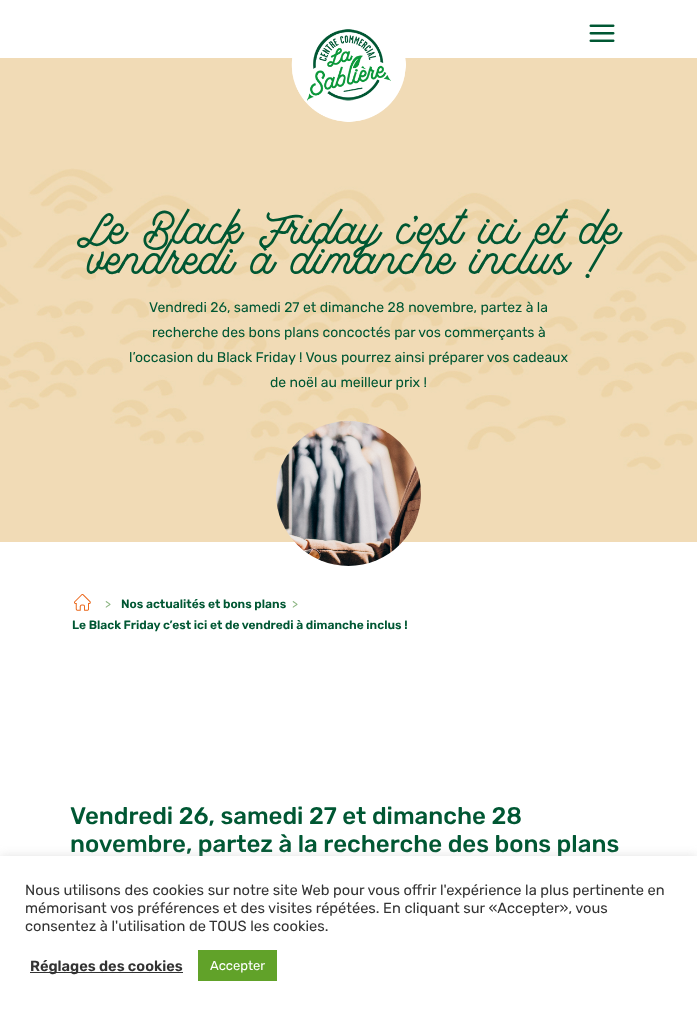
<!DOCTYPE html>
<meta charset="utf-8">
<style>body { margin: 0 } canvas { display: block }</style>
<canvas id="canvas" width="697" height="1011"></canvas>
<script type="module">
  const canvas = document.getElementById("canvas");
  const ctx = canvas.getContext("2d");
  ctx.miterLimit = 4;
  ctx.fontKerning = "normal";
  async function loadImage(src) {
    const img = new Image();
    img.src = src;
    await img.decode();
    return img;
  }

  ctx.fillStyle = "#ffffff";
  ctx.fillRect(0, 0, 697, 1011);
  ctx.drawImage(await loadImage("img3.png"), 0, 58, 697, 484);
  ctx.drawImage(await loadImage("img1.png"), 291, 29, 115, 93);
  ctx.drawImage(await loadImage("img2.png"), 589, 24, 26, 18);
  ctx.font = "50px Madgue";
  ctx.fillStyle = "#005733";
  ctx.fillText("Le Black Friday c’est ici et de", 77, 244);
  ctx.fillText("vendredi à dimanche inclus !", 88, 274);
  ctx.font = "14px Rubik";
  ctx.fillText("Vendredi 26, samedi 27 et dimanche 28 novembre, partez à la", 149, 312);
  ctx.fillText("recherche des bons plans concoctés par vos commerçants à", 152, 337);
  ctx.fillText("l’occasion du Black Friday ! Vous pourrez ainsi préparer vos cadeaux", 129, 362);
  ctx.fillText("de noël au meilleur prix !", 270, 387);
  ctx.drawImage(await loadImage("img4.png"), 276, 421, 145, 145);
  ctx.drawImage(await loadImage("img5.png"), 74, 594, 17, 17);
  ctx.font = "12px Rubik";
  ctx.fillStyle = "#8cb582";
  ctx.fillText(">", 105, 608);
  ctx.font = "600 12px Rubik";
  ctx.fillStyle = "#005733";
  ctx.fillText("Nos actualités et bons plans", 121, 608);
  ctx.font = "12px Rubik";
  ctx.fillStyle = "#8cb582";
  ctx.fillText(">", 292, 608);
  ctx.font = "600 12px Rubik";
  ctx.fillStyle = "#005733";
  ctx.fillText("Le Black Friday c’est ici et de vendredi à dimanche inclus !", 72, 629);
  ctx.font = "500 24px Rubik";
  ctx.fillText("Vendredi 26, samedi 27 et dimanche 28", 70, 824);
  ctx.fillText("novembre, partez à la recherche des bons plans", 70, 852);
  ctx.fillStyle = "rgba(172, 171, 171, 0.3)";
  ctx.filter = "blur(5px)";
  ctx.beginPath();
  ctx.rect(0, 855, 697, 155);
  ctx.fill();
  ctx.filter = "none";
  ctx.fillStyle = "#ffffff";
  ctx.fillRect(0, 856, 697, 155);
  ctx.font = "14.65px Rubik";
  ctx.fillStyle = "#333333";
  ctx.fillText("Nous utilisons des cookies sur notre site Web pour vous offrir l'expérience la plus pertinente en", 25, 895);
  ctx.fillText("mémorisant vos préférences et des visites répétées. En cliquant sur «Accepter», vous", 25, 913);
  ctx.fillText("consentez à l'utilisation de TOUS les cookies.", 25, 931);
  ctx.fillRect(30, 972, 153, 1);
  ctx.font = "600 14.65px Rubik";
  ctx.fillText("Réglages des cookies", 30, 971);
  ctx.fillStyle = "#61a229";
  ctx.fillRect(198, 950, 79, 31);
  ctx.font = "13px Rubik";
  ctx.fillStyle = "#ffffff";
  ctx.fillText("Accepter", 210, 970);
</script>
